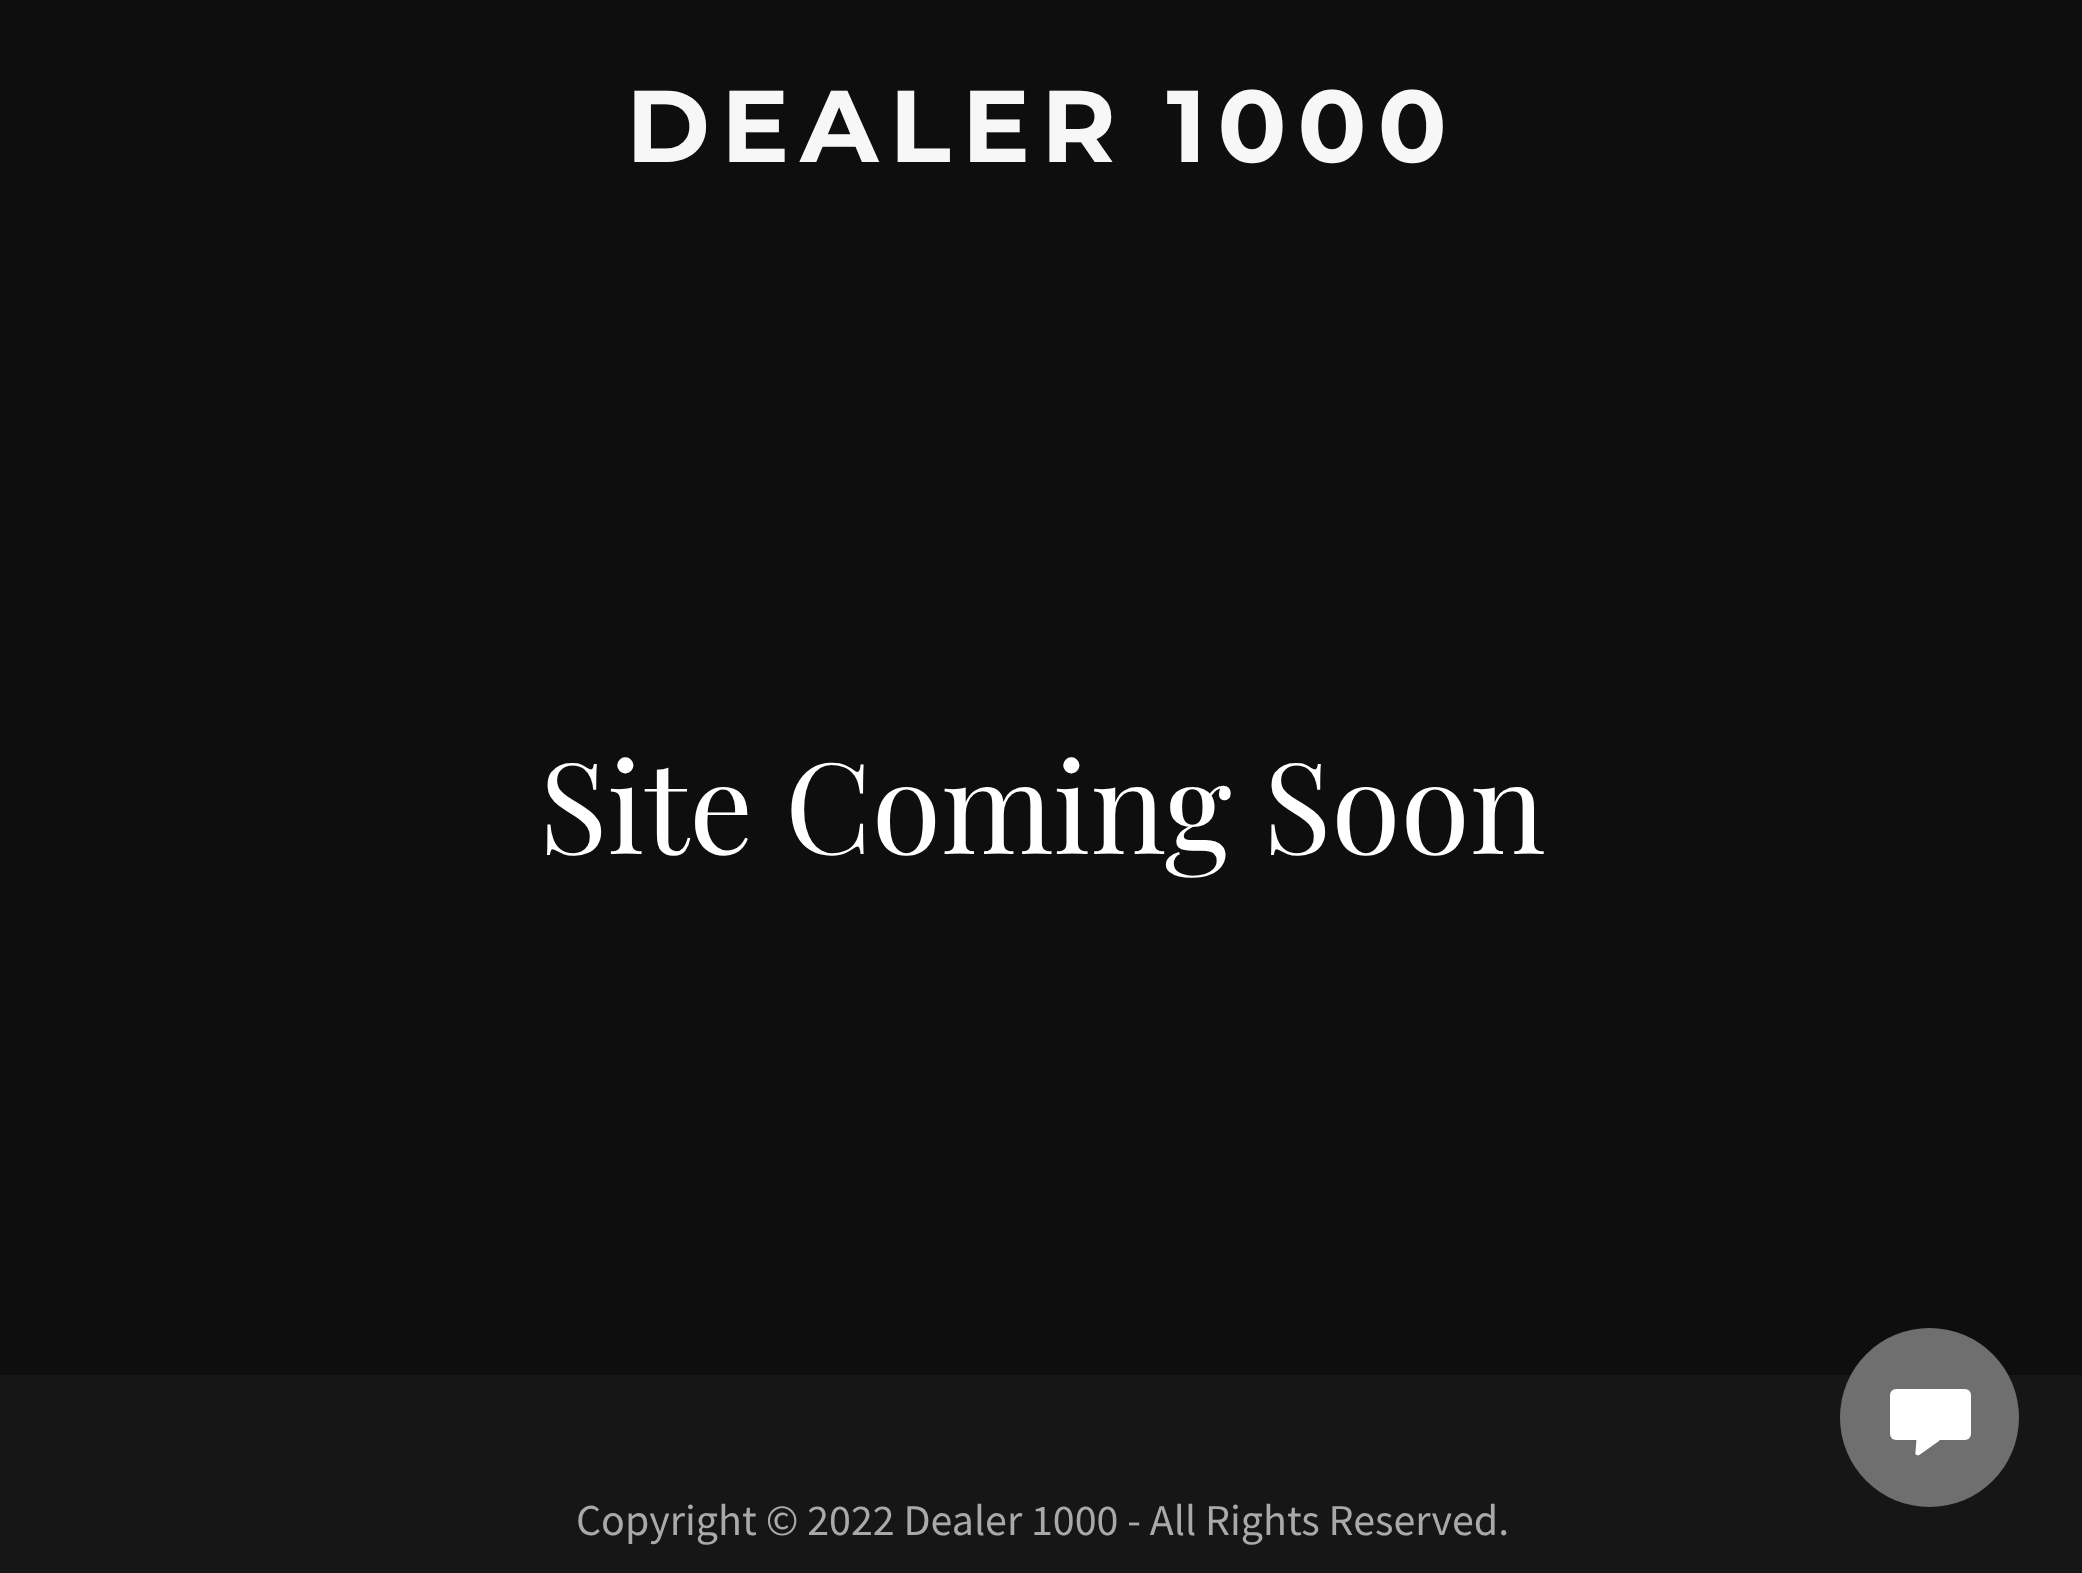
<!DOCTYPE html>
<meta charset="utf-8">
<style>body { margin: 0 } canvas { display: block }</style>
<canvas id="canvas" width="2082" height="1573"></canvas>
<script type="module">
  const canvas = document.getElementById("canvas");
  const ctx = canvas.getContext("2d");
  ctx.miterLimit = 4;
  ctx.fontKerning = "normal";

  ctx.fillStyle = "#161616";
  ctx.fillRect(0, 0, 2082, 1573);
  ctx.fillStyle = "#0e0e0e";
  ctx.fillRect(0, 0, 2082, 1375);
  ctx.letterSpacing = "11px";
  ctx.font = "bold 101.75px Montserrat";
  ctx.fillStyle = "#f7f7f7";
  ctx.fillText("DEALER 1000", 626, 162);
  ctx.letterSpacing = "0px";
  ctx.font = "126.5px Playfair Display";
  ctx.fillStyle = "#ffffff";
  ctx.fillText("Site Coming Soon", 539, 854);
  ctx.fillStyle = "#6f6f6f";
  ctx.beginPath();
  ctx.arc(1929.5, 1417.5, 89.5, 0, Math.PI * 2);
  ctx.fill();
  ctx.fillStyle = "#ffffff";
  ctx.beginPath();
  ctx.roundRect(1890, 1389, 81, 51, 6);
  ctx.fill();
  ctx.beginPath();
  ctx.moveTo(1915.5, 1452);
  ctx.lineTo(1916.5, 1438.5);
  ctx.bezierCurveTo(1916.5, 1437, 1917.5, 1436, 1919, 1436);
  ctx.lineTo(1937.5, 1436);
  ctx.bezierCurveTo(1940, 1436, 1941, 1439.5, 1939, 1441);
  ctx.lineTo(1920, 1454.5);
  ctx.bezierCurveTo(1919, 1455.5, 1917.5, 1455.5, 1916.5, 1455);
  ctx.bezierCurveTo(1915.5, 1454.5, 1915, 1453.5, 1915.5, 1452);
  ctx.closePath();
  ctx.fill();
  ctx.font = "44px Source Sans Pro";
  ctx.fillStyle = "#a9a9a9";
  ctx.fillText("Copyright © 2022 Dealer 1000 - All Rights Reserved.", 576, 1535);
</script>
